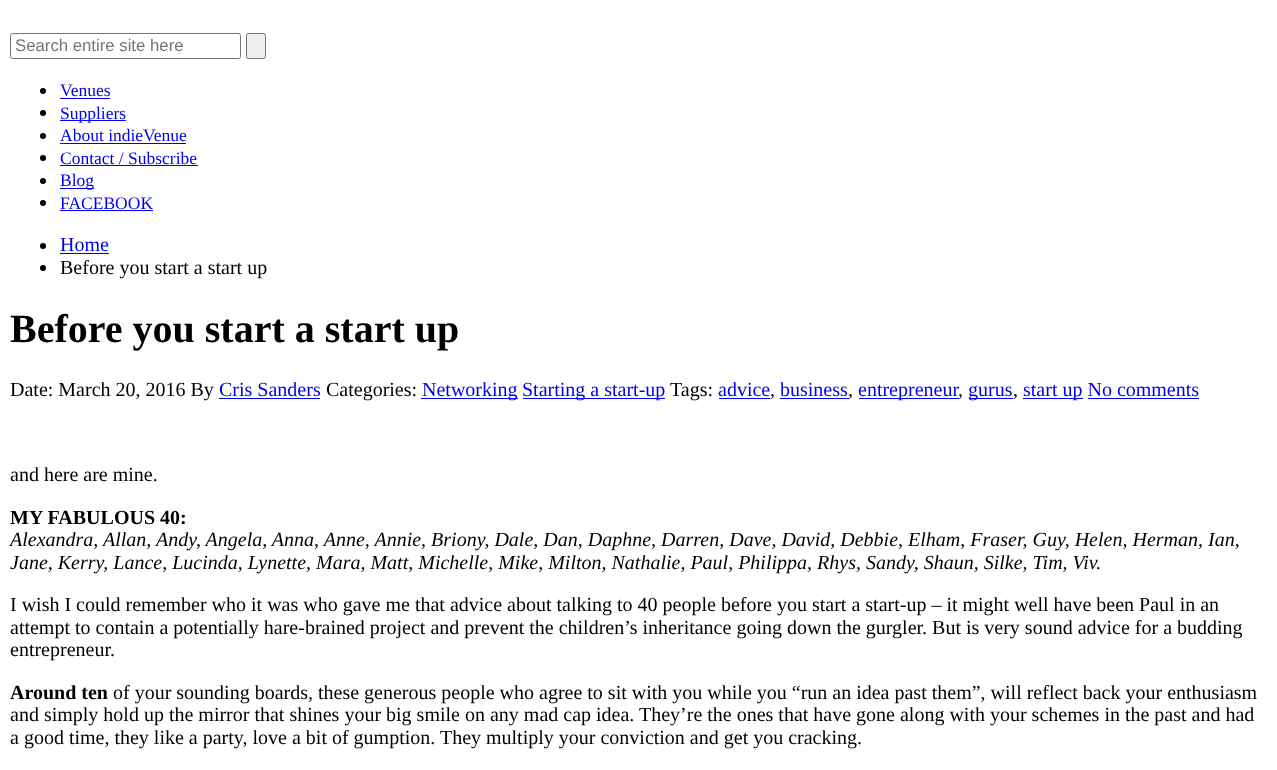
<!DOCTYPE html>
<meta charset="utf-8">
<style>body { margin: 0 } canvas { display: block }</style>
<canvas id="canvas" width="1277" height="770"></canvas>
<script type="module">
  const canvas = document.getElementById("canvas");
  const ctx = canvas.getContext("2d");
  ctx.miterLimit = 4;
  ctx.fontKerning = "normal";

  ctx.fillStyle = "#ffffff";
  ctx.fillRect(0, 0, 1277, 770);
  ctx.beginPath();
  ctx.roundRect(10.5, 33.5, 230, 25, 2);
  ctx.strokeStyle = "#767676";
  ctx.stroke();
  ctx.font = "16.75px Liberation Sans";
  ctx.fillStyle = "#757575";
  ctx.fillText("Search entire site here", 15, 51);
  ctx.fillStyle = "#efefef";
  ctx.beginPath();
  ctx.roundRect(246.5, 33.5, 19, 25, 2);
  ctx.fill();
  ctx.stroke();
  ctx.fillStyle = "#000000";
  ctx.beginPath();
  ctx.arc(43, 91, 3, 0, Math.PI * 2);
  ctx.fill();
  ctx.font = "17.5px Liberation Serif";
  ctx.fillStyle = "#0000ee";
  ctx.fillText("Venues", 60, 96);
  ctx.fillRect(60, 98, 50, 1);
  ctx.fillStyle = "#000000";
  ctx.beginPath();
  ctx.arc(43, 113, 3, 0, Math.PI * 2);
  ctx.fill();
  ctx.fillStyle = "#0000ee";
  ctx.fillRect(60, 120, 66, 1);
  ctx.fillText("Suppliers", 60, 119);
  ctx.fillStyle = "#000000";
  ctx.beginPath();
  ctx.arc(43, 136, 3, 0, Math.PI * 2);
  ctx.fill();
  ctx.fillStyle = "#0000ee";
  ctx.fillText("About indieVenue", 60, 141);
  ctx.fillRect(60, 143, 126, 1);
  ctx.fillStyle = "#000000";
  ctx.beginPath();
  ctx.arc(43, 158, 3, 0, Math.PI * 2);
  ctx.fill();
  ctx.fillStyle = "#0000ee";
  ctx.fillText("Contact / Subscribe", 60, 164);
  ctx.fillRect(60, 165, 138, 1);
  ctx.fillStyle = "#000000";
  ctx.beginPath();
  ctx.arc(43, 181, 3, 0, Math.PI * 2);
  ctx.fill();
  ctx.fillStyle = "#0000ee";
  ctx.fillRect(60, 188, 34, 1);
  ctx.fillText("Blog", 60, 186);
  ctx.fillStyle = "#000000";
  ctx.beginPath();
  ctx.arc(43, 203, 3, 0, Math.PI * 2);
  ctx.fill();
  ctx.fillStyle = "#0000ee";
  ctx.fillText("FACEBOOK", 60, 209);
  ctx.fillRect(60, 210, 93, 1);
  ctx.fillStyle = "#000000";
  ctx.beginPath();
  ctx.arc(43, 246, 3, 0, Math.PI * 2);
  ctx.fill();
  ctx.font = "20px Liberation Serif";
  ctx.fillStyle = "#0000ee";
  ctx.fillText("Home", 60, 251);
  ctx.fillRect(60, 253, 49, 1);
  ctx.fillStyle = "#000000";
  ctx.beginPath();
  ctx.arc(43, 268, 3, 0, Math.PI * 2);
  ctx.fill();
  ctx.fillText("Before you start a start up", 60, 274);
  ctx.font = "bold 40px Liberation Serif";
  ctx.fillText("Before you start a start up", 10, 342);
  ctx.font = "20px Liberation Serif";
  ctx.fillText("Date: March 20, 2016 By", 10, 396);
  ctx.fillStyle = "#0000ee";
  ctx.fillText("Cris Sanders", 219, 396);
  ctx.fillRect(219, 398, 101, 1);
  ctx.fillStyle = "#000000";
  ctx.fillText("Categories:", 326, 396);
  ctx.fillStyle = "#0000ee";
  ctx.fillRect(421, 398, 97, 1);
  ctx.fillText("Networking", 422, 396);
  ctx.fillRect(523, 398, 142, 1);
  ctx.fillText("Starting a start-up", 522, 396);
  ctx.fillStyle = "#000000";
  ctx.fillText("Tags:", 670, 396);
  ctx.fillStyle = "#0000ee";
  ctx.fillText("advice", 718, 396);
  ctx.fillStyle = "#000000";
  ctx.fillText(",", 770, 396);
  ctx.fillStyle = "#0000ee";
  ctx.fillRect(719, 398, 51, 1);
  ctx.fillText("business", 780, 396);
  ctx.fillRect(780, 398, 69, 1);
  ctx.fillStyle = "#000000";
  ctx.fillText(",", 848, 396);
  ctx.fillStyle = "#0000ee";
  ctx.fillRect(859, 398, 100, 1);
  ctx.fillText("entrepreneur", 858, 396);
  ctx.fillStyle = "#000000";
  ctx.fillText(",", 958, 396);
  ctx.fillStyle = "#0000ee";
  ctx.fillRect(969, 398, 44, 1);
  ctx.fillText("gurus", 968, 396);
  ctx.fillStyle = "#000000";
  ctx.fillText(",", 1013, 396);
  ctx.fillStyle = "#0000ee";
  ctx.fillRect(1023, 398, 60, 1);
  ctx.fillText("start up No comments", 1023, 396);
  ctx.fillRect(1088, 398, 111, 1);
  ctx.fillStyle = "#000000";
  ctx.fillText("and here are mine.", 10, 481);
  ctx.font = "bold 20px Liberation Serif";
  ctx.fillText("MY FABULOUS 40:", 10, 524);
  ctx.font = "italic 20px Liberation Serif";
  ctx.fillText("Alexandra, Allan, Andy, Angela, Anna, Anne, Annie, Briony, Dale, Dan, Daphne, Darren, Dave, David, Debbie, Elham, Fraser, Guy, Helen, Herman, Ian,", 10, 546);
  ctx.fillText("Jane, Kerry, Lance, Lucinda, Lynette, Mara, Matt, Michelle, Mike, Milton, Nathalie, Paul, Philippa, Rhys, Sandy, Shaun, Silke, Tim, Viv.", 10, 569);
  ctx.font = "20px Liberation Serif";
  ctx.fillText("I wish I could remember who it was who gave me that advice about talking to 40 people before you start a start-up – it might well have been Paul in an", 10, 611);
  ctx.fillText("attempt to contain a potentially hare-brained project and prevent the children’s inheritance going down the gurgler. But is very sound advice for a budding", 10, 634);
  ctx.fillText("entrepreneur.", 10, 656);
  ctx.font = "bold 20px Liberation Serif";
  ctx.fillText("Around ten", 10, 699);
  ctx.font = "20px Liberation Serif";
  ctx.fillText("of your sounding boards, these generous people who agree to sit with you while you “run an idea past them”, will reflect back your enthusiasm", 113, 699);
  ctx.fillText("and simply hold up the mirror that shines your big smile on any mad cap idea. They’re the ones that have gone along with your schemes in the past and had", 10, 721);
  ctx.fillText("a good time, they like a party, love a bit of gumption. They multiply your conviction and get you cracking.", 10, 744);
</script>
